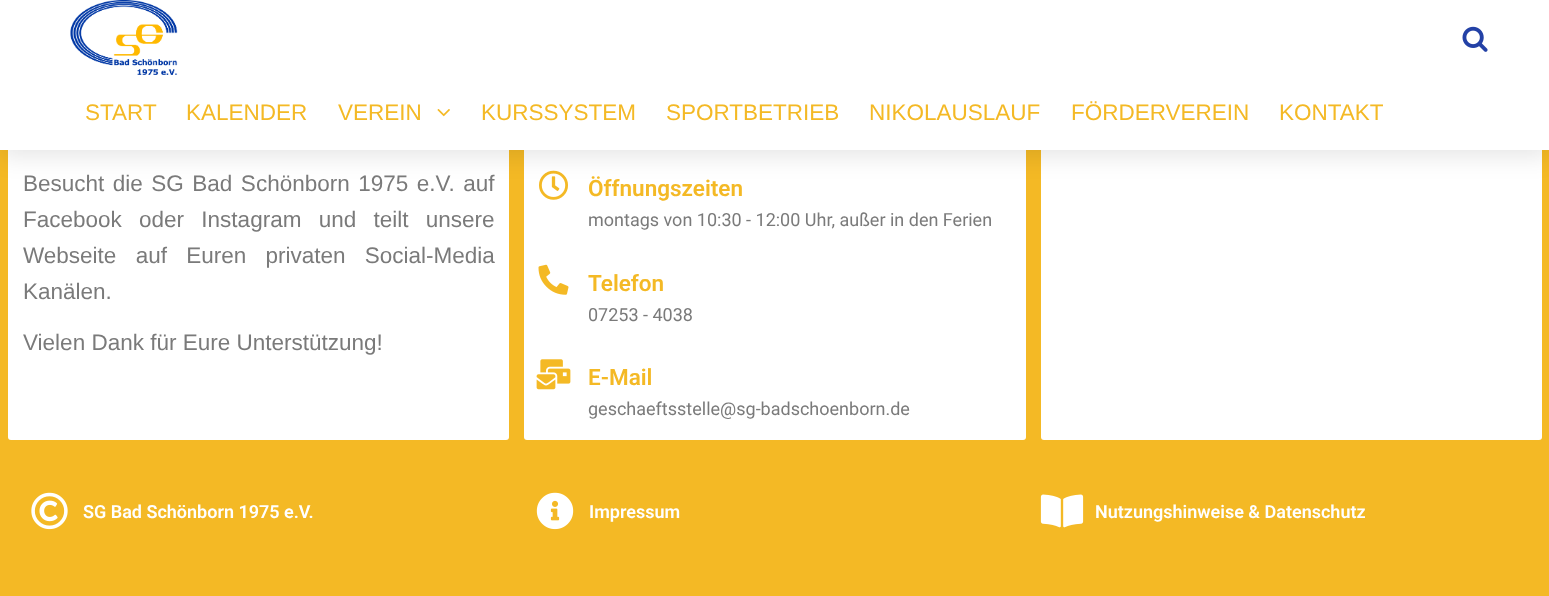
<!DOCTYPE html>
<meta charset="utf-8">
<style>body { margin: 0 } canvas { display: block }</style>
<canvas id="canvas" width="1549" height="596"></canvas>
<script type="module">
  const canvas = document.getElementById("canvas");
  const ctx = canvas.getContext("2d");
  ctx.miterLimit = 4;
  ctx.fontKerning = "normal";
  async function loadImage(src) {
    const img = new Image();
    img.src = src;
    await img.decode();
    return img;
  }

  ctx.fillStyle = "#f4b925";
  ctx.fillRect(0, 0, 1549, 596);
  ctx.fillStyle = "#ffffff";
  ctx.beginPath();
  ctx.roundRect(8, -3, 501, 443, 3);
  ctx.fill();
  ctx.beginPath();
  ctx.roundRect(524, -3, 502, 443, 3);
  ctx.fill();
  ctx.drawImage(await loadImage("img4.png"), 539, 170, 29, 30);
  ctx.beginPath();
  ctx.roundRect(1041, -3, 501, 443, 3);
  ctx.fill();
  ctx.fillStyle = "rgba(0, 0, 0, 0.1)";
  ctx.filter = "blur(12px)";
  ctx.beginPath();
  ctx.rect(0, 6, 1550, 150);
  ctx.fill();
  ctx.filter = "none";
  ctx.fillStyle = "#ffffff";
  ctx.fillRect(0, 0, 1549, 150);
  ctx.drawImage(await loadImage("img1.png"), 70, 0, 108, 75);
  ctx.drawImage(await loadImage("img2.png"), 1462, 26, 26, 26);
  ctx.font = "22.5px Liberation Sans";
  ctx.fillStyle = "#f4b925";
  ctx.fillText("START", 85, 120);
  ctx.fillText("KALENDER", 186, 120);
  ctx.fillText("VEREIN", 338, 120);
  ctx.drawImage(await loadImage("img3.png"), 437, 109, 13, 8);
  ctx.fillText("KURSSYSTEM", 481, 120);
  ctx.fillText("SPORTBETRIEB", 666, 120);
  ctx.fillText("NIKOLAUSLAUF", 869, 120);
  ctx.fillText("FÖRDERVEREIN", 1071, 120);
  ctx.fillText("KONTAKT", 1279, 120);
  ctx.wordSpacing = "2.25px";
  ctx.fillStyle = "#7a7a7a";
  ctx.fillText("Besucht die SG Bad Schönborn 1975 e.V. auf", 23, 191);
  ctx.wordSpacing = "11px";
  ctx.fillText("Facebook oder Instagram und teilt unsere", 23, 227);
  ctx.wordSpacing = "13px";
  ctx.fillText("Webseite auf Euren privaten Social-Media", 23, 263);
  ctx.wordSpacing = "0px";
  ctx.fillText("Kanälen.", 23, 299);
  ctx.fillText("Vielen Dank für Eure Unterstützung!", 23, 350);
  ctx.font = "600 22.5px Roboto";
  ctx.fillStyle = "#f4b925";
  ctx.fillText("Öffnungszeiten", 588, 196);
  ctx.font = "18px Roboto";
  ctx.fillStyle = "#7a7a7a";
  ctx.fillText("montags von 10:30 - 12:00 Uhr, außer in den Ferien", 588, 226);
  ctx.drawImage(await loadImage("img5.png"), 538, 264, 31, 31);
  ctx.font = "600 22.5px Roboto";
  ctx.fillStyle = "#f4b925";
  ctx.fillText("Telefon", 588, 291);
  ctx.font = "18px Roboto";
  ctx.fillStyle = "#7a7a7a";
  ctx.fillText("07253 - 4038", 588, 321);
  ctx.drawImage(await loadImage("img6.png"), 536, 359, 35, 31);
  ctx.font = "600 22.5px Roboto";
  ctx.fillStyle = "#f4b925";
  ctx.fillText("E-Mail", 588, 385);
  ctx.font = "18px Roboto";
  ctx.fillStyle = "#7a7a7a";
  ctx.fillText("geschaeftsstelle@sg-badschoenborn.de", 588, 415);
  ctx.drawImage(await loadImage("img7.png"), 31, 492, 37, 38);
  ctx.font = "600 18px Roboto";
  ctx.fillStyle = "#ffffff";
  ctx.fillText("SG Bad Schönborn 1975 e.V.", 83, 518);
  ctx.drawImage(await loadImage("img8.png"), 536, 492, 38, 38);
  ctx.fillText("Impressum", 589, 518);
  ctx.drawImage(await loadImage("img9.png"), 1040, 494, 44, 34);
  ctx.fillText("Nutzungshinweise & Datenschutz", 1095, 518);
</script>
